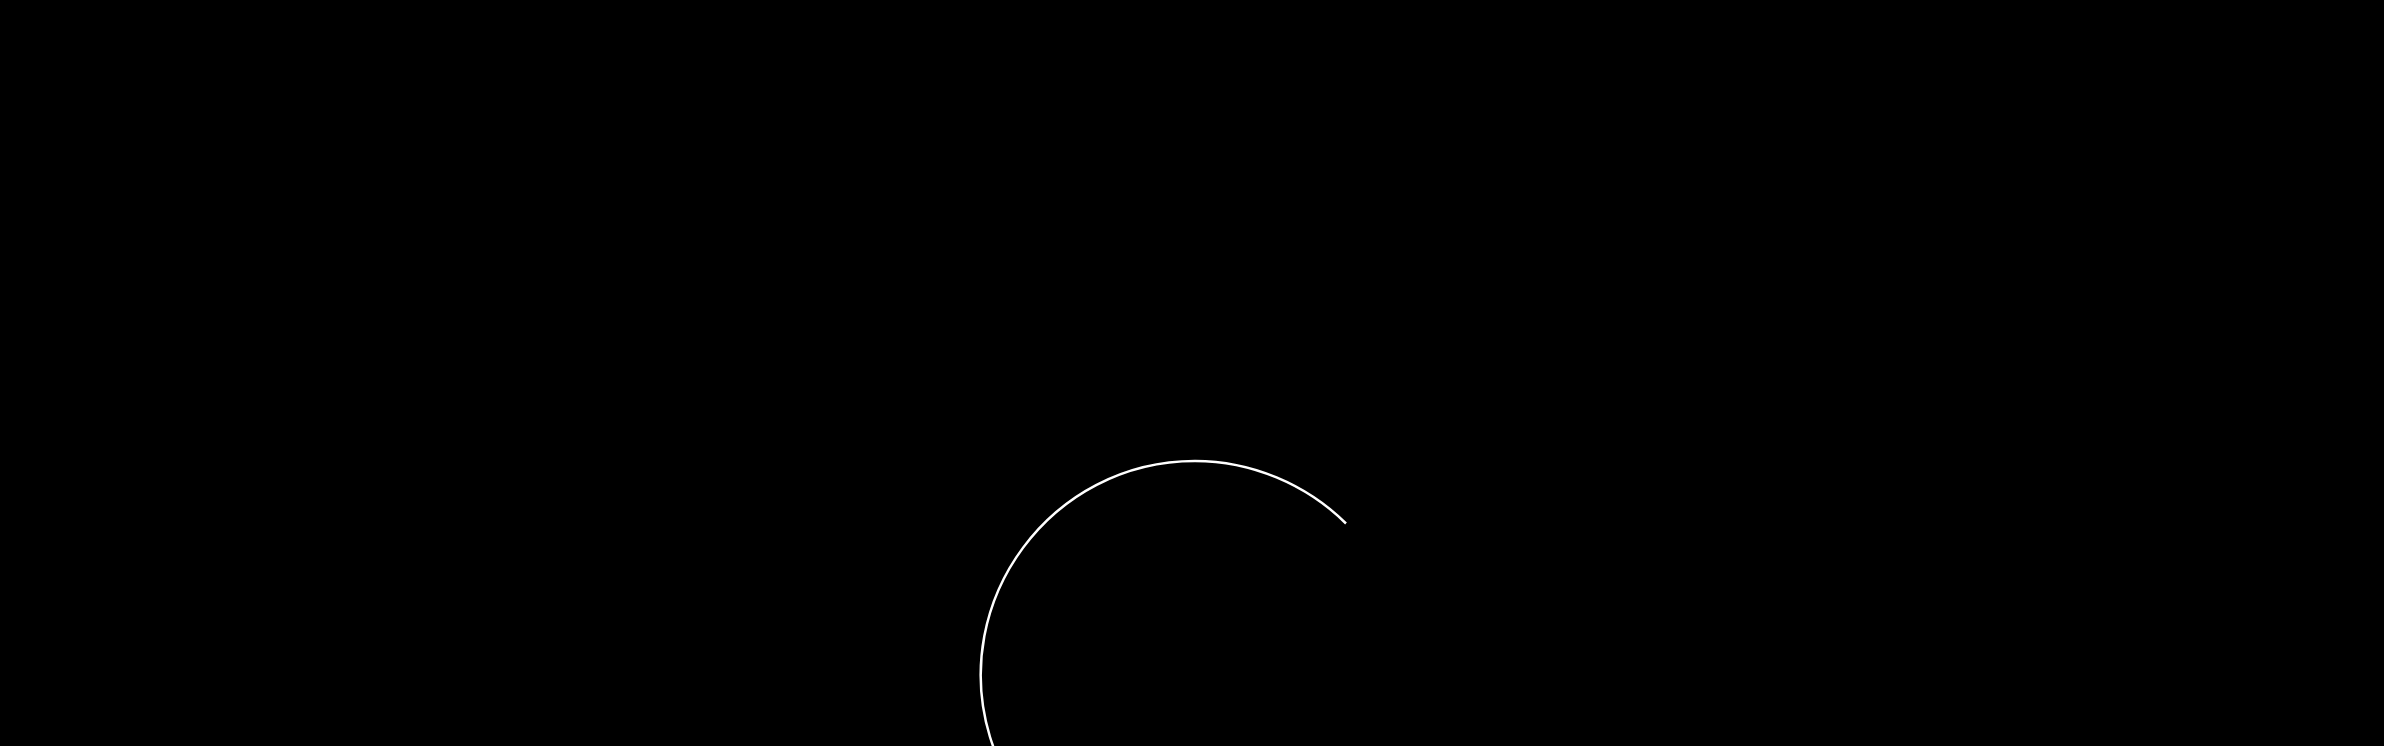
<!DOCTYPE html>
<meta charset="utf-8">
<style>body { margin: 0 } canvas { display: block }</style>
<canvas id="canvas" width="2384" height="746"></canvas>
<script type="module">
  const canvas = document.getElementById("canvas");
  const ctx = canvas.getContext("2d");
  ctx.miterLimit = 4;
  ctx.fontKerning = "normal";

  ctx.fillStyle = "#000000";
  ctx.fillRect(0, 0, 2384, 746);
  ctx.beginPath();
  ctx.moveTo(1346, 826);
  ctx.bezierCurveTo(1296, 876, 1222.5, 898, 1153, 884.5);
  ctx.bezierCurveTo(1111.5, 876, 1073.5, 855.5, 1043.5, 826);
  ctx.bezierCurveTo(1019, 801, 1000.5, 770.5, 990, 737);
  ctx.bezierCurveTo(948.5, 600, 1051.5, 461, 1195, 461);
  ctx.bezierCurveTo(1251, 461, 1306, 484, 1346, 523.5);
  ctx.strokeStyle = "#ffffff";
  ctx.lineWidth = 2.5;
  ctx.stroke();
</script>
